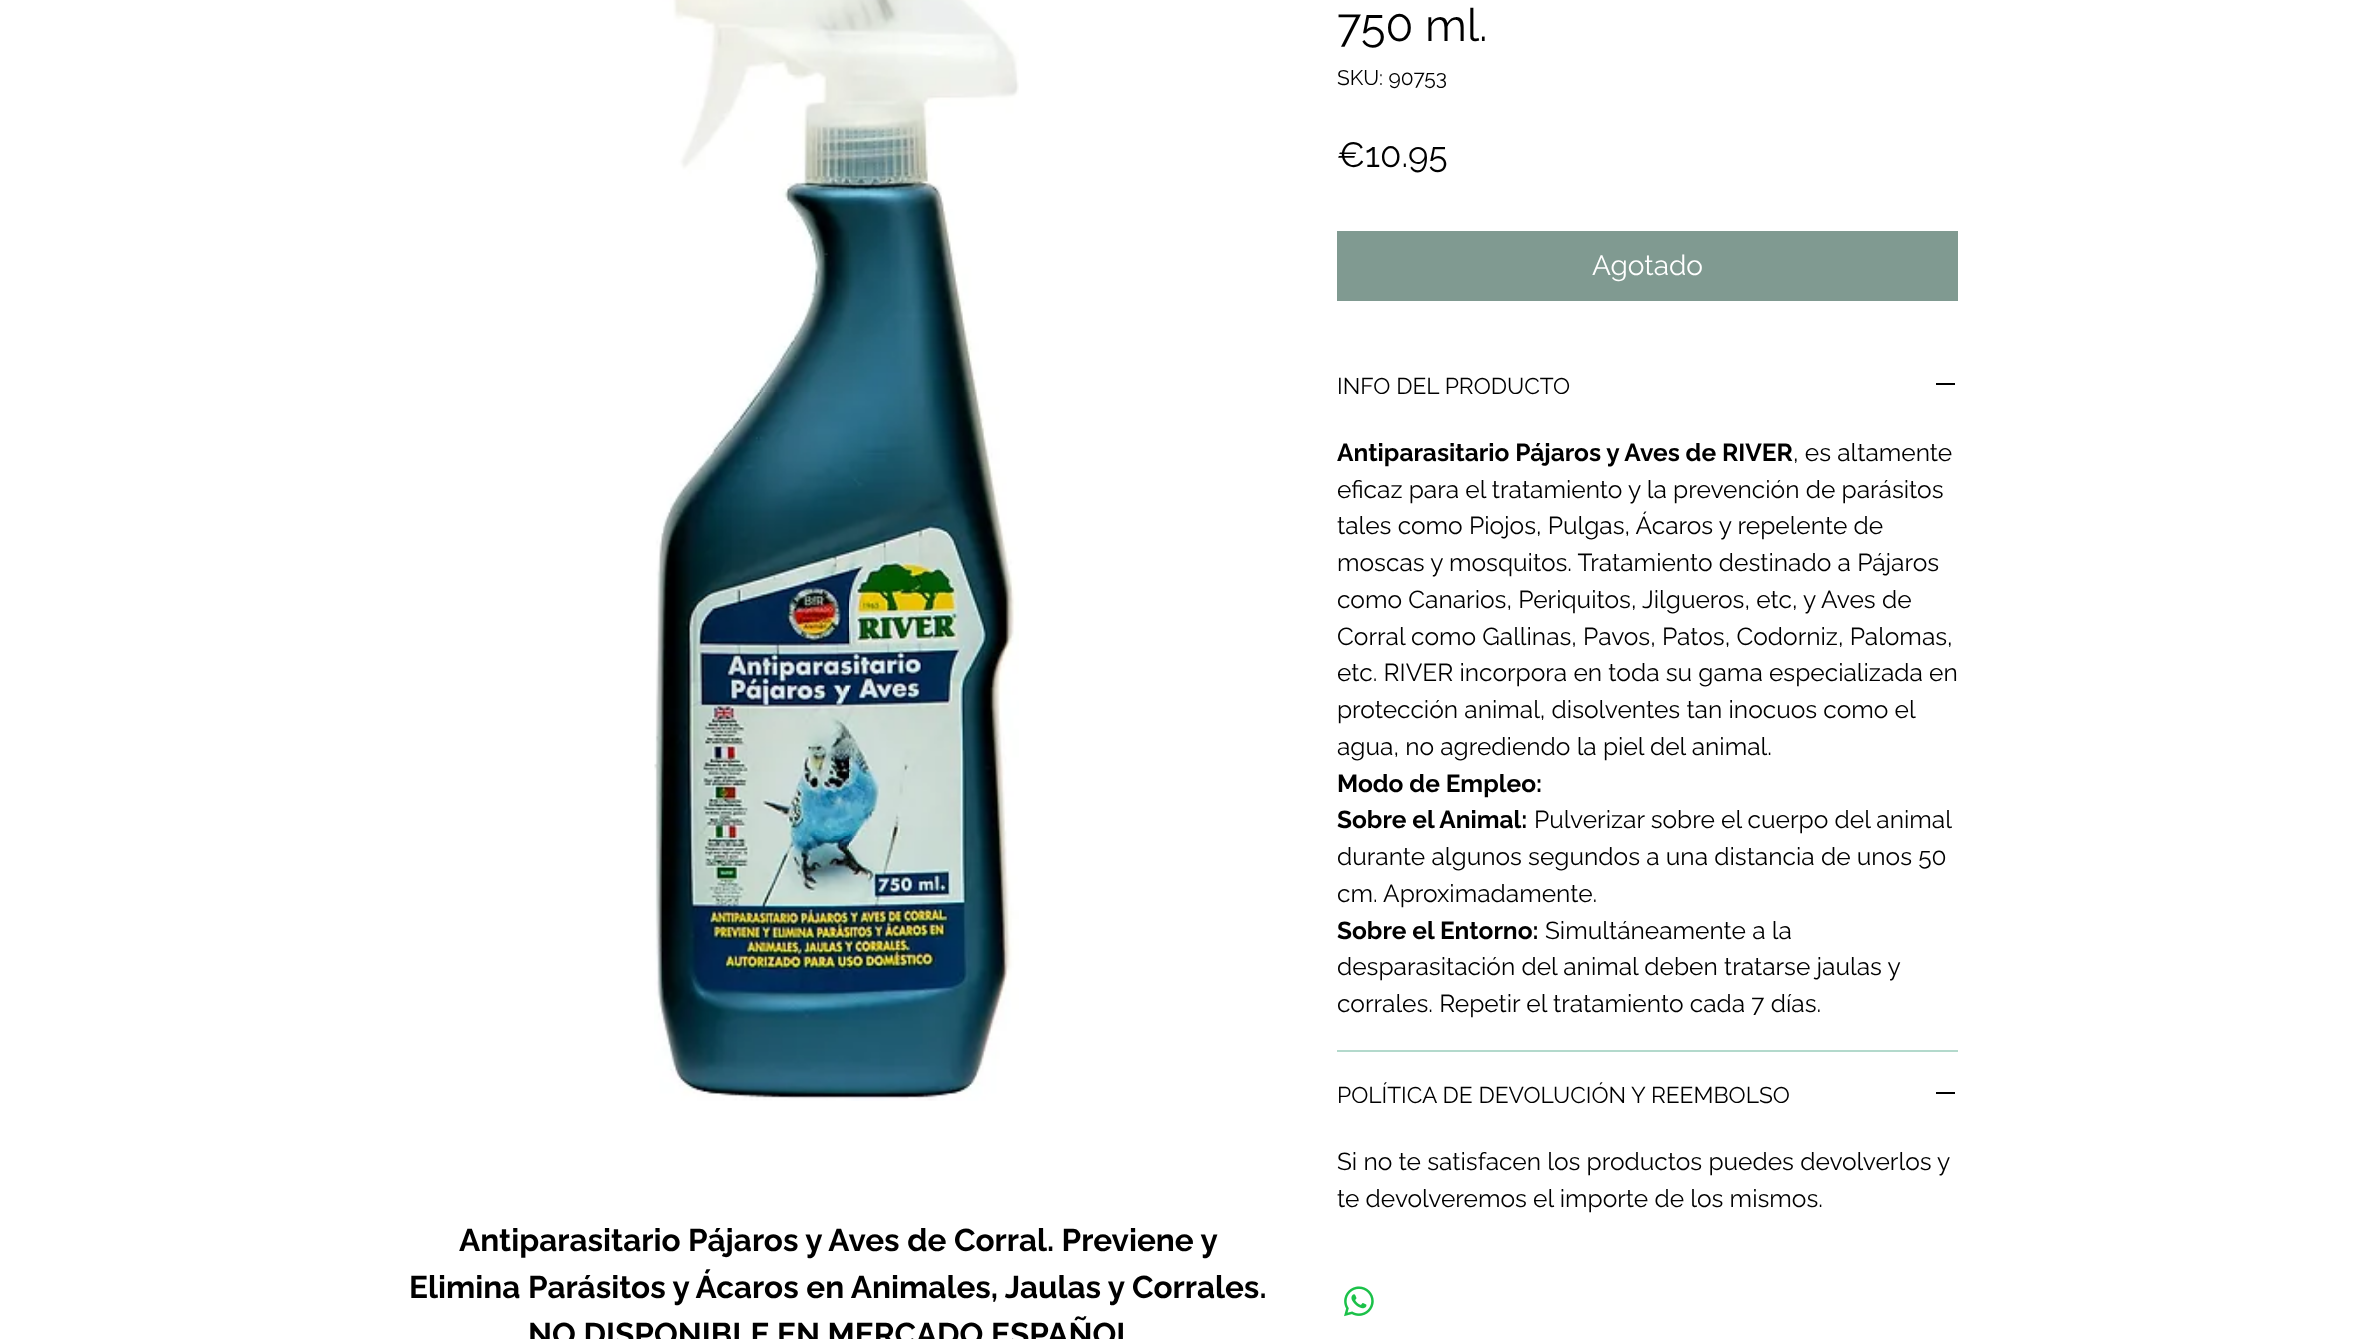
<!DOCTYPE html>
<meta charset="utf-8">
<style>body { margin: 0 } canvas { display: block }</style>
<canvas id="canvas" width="2358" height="1339"></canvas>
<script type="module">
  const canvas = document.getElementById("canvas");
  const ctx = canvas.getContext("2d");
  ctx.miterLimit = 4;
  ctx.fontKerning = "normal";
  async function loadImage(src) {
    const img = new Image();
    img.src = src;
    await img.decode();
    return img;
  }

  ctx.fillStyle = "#ffffff";
  ctx.fillRect(0, 0, 2358, 1339);
  ctx.font = "45.5px Raleway";
  ctx.fillStyle = "#000000";
  ctx.fillText("750 ml.", 1337, 41);
  ctx.font = "21px Raleway";
  ctx.fillText("SKU: 90753", 1337, 85);
  ctx.font = "35px Raleway";
  ctx.fillText("€10.95", 1337, 167);
  ctx.fillStyle = "#809a91";
  ctx.fillRect(1337, 231, 621, 70);
  ctx.font = "28px Raleway";
  ctx.fillStyle = "#ffffff";
  ctx.fillText("Agotado", 1592, 275);
  ctx.fillStyle = "#b3d9cc";
  ctx.fillRect(1337, 1050, 621, 2);
  ctx.font = "22.75px Raleway";
  ctx.fillStyle = "#000000";
  ctx.fillText("INFO DEL PRODUCTO", 1337, 394);
  ctx.fillRect(1936, 383, 19, 2);
  ctx.font = "bold 24.5px Raleway";
  ctx.fillText("Antiparasitario Pájaros y Aves de RIVER", 1337, 461);
  ctx.font = "24.5px Raleway";
  ctx.fillText(", es altamente", 1793, 461);
  ctx.fillText("eficaz para el tratamiento y la prevención de parásitos", 1337, 498);
  ctx.fillText("tales como Piojos, Pulgas, Ácaros y repelente de", 1337, 534);
  ctx.fillText("moscas y mosquitos. Tratamiento destinado a Pájaros", 1337, 571);
  ctx.fillText("como Canarios, Periquitos, Jilgueros, etc, y Aves de", 1337, 608);
  ctx.fillText("Corral como Gallinas, Pavos, Patos, Codorniz, Palomas,", 1337, 645);
  ctx.fillText("etc. RIVER incorpora en toda su gama especializada en", 1337, 681);
  ctx.fillText("protección animal, disolventes tan inocuos como el", 1337, 718);
  ctx.fillText("agua, no agrediendo la piel del animal.", 1337, 755);
  ctx.font = "bold 24.5px Raleway";
  ctx.fillText("Modo de Empleo:", 1337, 792);
  ctx.fillText("Sobre el Animal:", 1337, 828);
  ctx.font = "24.5px Raleway";
  ctx.fillText("Pulverizar sobre el cuerpo del animal", 1534, 828);
  ctx.fillText("durante algunos segundos a una distancia de unos 50", 1337, 865);
  ctx.fillText("cm. Aproximadamente.", 1337, 902);
  ctx.font = "bold 24.5px Raleway";
  ctx.fillText("Sobre el Entorno:", 1337, 939);
  ctx.font = "24.5px Raleway";
  ctx.fillText("Simultáneamente a la", 1545, 939);
  ctx.fillText("desparasitación del animal deben tratarse jaulas y", 1337, 975);
  ctx.fillText("corrales. Repetir el tratamiento cada 7 días.", 1337, 1012);
  ctx.font = "22.75px Raleway";
  ctx.fillText("POLÍTICA DE DEVOLUCIÓN Y REEMBOLSO", 1337, 1103);
  ctx.fillRect(1936, 1092, 19, 2);
  ctx.font = "24.5px Raleway";
  ctx.fillText("Si no te satisfacen los productos puedes devolverlos y", 1337, 1170);
  ctx.fillText("te devolveremos el importe de los mismos.", 1337, 1207);
  ctx.drawImage(await loadImage("img1.png"), 1344, 1286, 30, 31);
  ctx.drawImage(await loadImage("img2.png"), 654, 0, 365, 1101);
  ctx.font = "bold 31.5px Raleway";
  ctx.fillText("Antiparasitario Pájaros y Aves de Corral. Previene y", 459, 1251);
  ctx.fillText("Elimina Parásitos y Ácaros en Animales, Jaulas y Corrales.", 409, 1298);
  ctx.fillText("NO DISPONIBLE EN MERCADO ESPAÑOL", 528, 1345);
</script>
